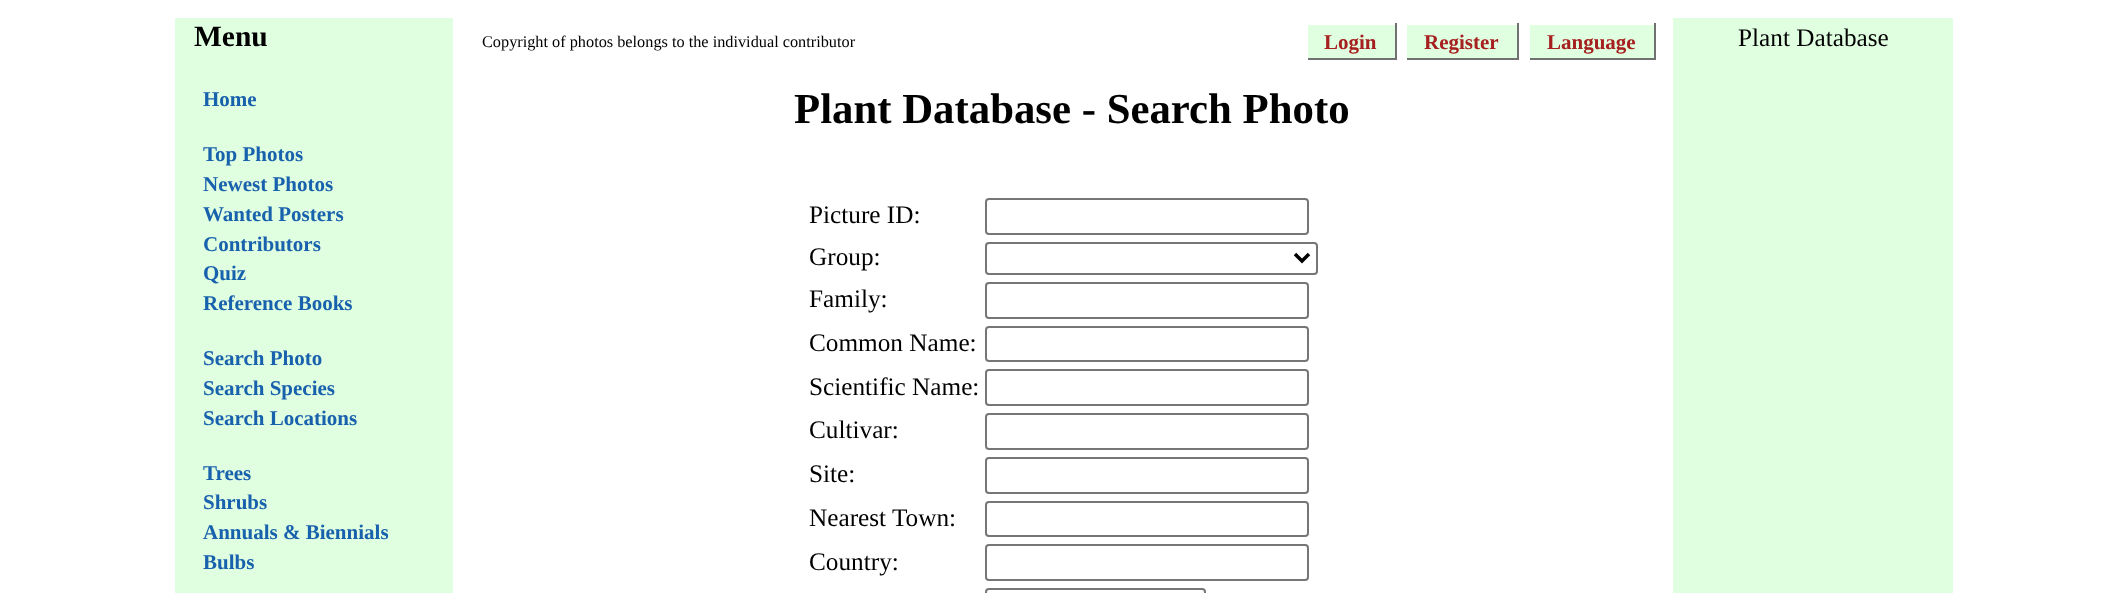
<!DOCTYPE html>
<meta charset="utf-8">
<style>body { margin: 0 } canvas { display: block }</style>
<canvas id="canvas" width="2128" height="593"></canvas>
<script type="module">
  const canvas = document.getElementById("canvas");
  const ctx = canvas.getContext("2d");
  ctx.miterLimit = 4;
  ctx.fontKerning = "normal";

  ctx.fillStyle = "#ffffff";
  ctx.fillRect(0, 0, 2128, 593);
  ctx.fillStyle = "#e0ffe0";
  ctx.fillRect(175, 18, 278, 575);
  ctx.font = "bold 29.5px Liberation Serif";
  ctx.fillStyle = "#000000";
  ctx.fillText("Menu", 194, 46);
  ctx.font = "bold 21px Liberation Serif";
  ctx.fillStyle = "#1861ad";
  ctx.fillText("Home", 203, 106);
  ctx.fillText("Top Photos", 203, 161);
  ctx.fillText("Newest Photos", 203, 191);
  ctx.fillText("Wanted Posters", 203, 221);
  ctx.fillText("Contributors", 203, 251);
  ctx.fillText("Quiz", 203, 280);
  ctx.fillText("Reference Books", 203, 310);
  ctx.fillText("Search Photo", 203, 365);
  ctx.fillText("Search Species", 203, 395);
  ctx.fillText("Search Locations", 203, 425);
  ctx.fillText("Trees", 203, 480);
  ctx.fillText("Shrubs", 203, 509);
  ctx.fillText("Annuals & Biennials", 203, 539);
  ctx.fillText("Bulbs", 203, 569);
  ctx.font = "16.3px Liberation Serif";
  ctx.fillStyle = "#000000";
  ctx.fillText("Copyright of photos belongs to the individual contributor", 482, 47);
  ctx.fillStyle = "#e0ffe0";
  ctx.fillRect(1308, 25, 87, 33);
  ctx.font = "bold 21px Liberation Serif";
  ctx.fillStyle = "#a62020";
  ctx.fillText("Login", 1324, 49);
  ctx.fillStyle = "#717171";
  ctx.fillRect(1395, 23, 2, 37);
  ctx.fillRect(1306, 58, 91, 2);
  ctx.fillStyle = "#ffffff";
  ctx.fillRect(1306, 58, 2, 2);
  ctx.fillStyle = "#e0ffe0";
  ctx.fillRect(1407, 25, 110, 33);
  ctx.fillStyle = "#a62020";
  ctx.fillText("Register", 1424, 49);
  ctx.fillStyle = "#717171";
  ctx.fillRect(1517, 23, 2, 37);
  ctx.fillRect(1405, 58, 114, 2);
  ctx.fillStyle = "#ffffff";
  ctx.fillRect(1405, 58, 2, 2);
  ctx.fillStyle = "#e0ffe0";
  ctx.fillRect(1530, 25, 124, 33);
  ctx.fillStyle = "#a62020";
  ctx.fillText("Language", 1547, 49);
  ctx.fillStyle = "#717171";
  ctx.fillRect(1654, 23, 2, 37);
  ctx.fillRect(1528, 58, 128, 2);
  ctx.fillStyle = "#ffffff";
  ctx.fillRect(1528, 58, 2, 2);
  ctx.font = "bold 42.8px Liberation Serif";
  ctx.fillStyle = "#000000";
  ctx.fillText("Plant Database - Search Photo", 794, 123);
  ctx.font = "25.25px Liberation Serif";
  ctx.fillText("Picture ID:", 809, 223);
  ctx.beginPath();
  ctx.roundRect(986, 199, 322, 35, 3);
  ctx.strokeStyle = "#767676";
  ctx.lineWidth = 2;
  ctx.stroke();
  ctx.fillText("Group:", 809, 265);
  ctx.beginPath();
  ctx.roundRect(986, 243, 331, 31, 3);
  ctx.stroke();
  ctx.beginPath();
  ctx.moveTo(1295, 254);
  ctx.lineTo(1302, 261);
  ctx.lineTo(1309, 254);
  ctx.strokeStyle = "#000000";
  ctx.lineWidth = 3.5;
  ctx.stroke();
  ctx.fillText("Family:", 809, 307);
  ctx.beginPath();
  ctx.roundRect(986, 283, 322, 35, 3);
  ctx.strokeStyle = "#767676";
  ctx.lineWidth = 2;
  ctx.stroke();
  ctx.fillText("Common Name:", 809, 351);
  ctx.beginPath();
  ctx.roundRect(986, 327, 322, 34, 3);
  ctx.stroke();
  ctx.fillText("Scientific Name:", 809, 395);
  ctx.beginPath();
  ctx.roundRect(986, 370, 322, 35, 3);
  ctx.stroke();
  ctx.fillText("Cultivar:", 809, 438);
  ctx.beginPath();
  ctx.roundRect(986, 414, 322, 35, 3);
  ctx.stroke();
  ctx.fillText("Site:", 809, 482);
  ctx.beginPath();
  ctx.roundRect(986, 458, 322, 35, 3);
  ctx.stroke();
  ctx.fillText("Nearest Town:", 809, 526);
  ctx.beginPath();
  ctx.roundRect(986, 502, 322, 34, 3);
  ctx.stroke();
  ctx.fillText("Country:", 809, 570);
  ctx.beginPath();
  ctx.roundRect(986, 545, 322, 35, 3);
  ctx.stroke();
  ctx.beginPath();
  ctx.roundRect(986, 589, 219, 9, 3);
  ctx.stroke();
  ctx.fillStyle = "#e0ffe0";
  ctx.fillRect(1673, 18, 280, 575);
  ctx.fillStyle = "#000000";
  ctx.fillText("Plant Database", 1738, 46);
</script>
